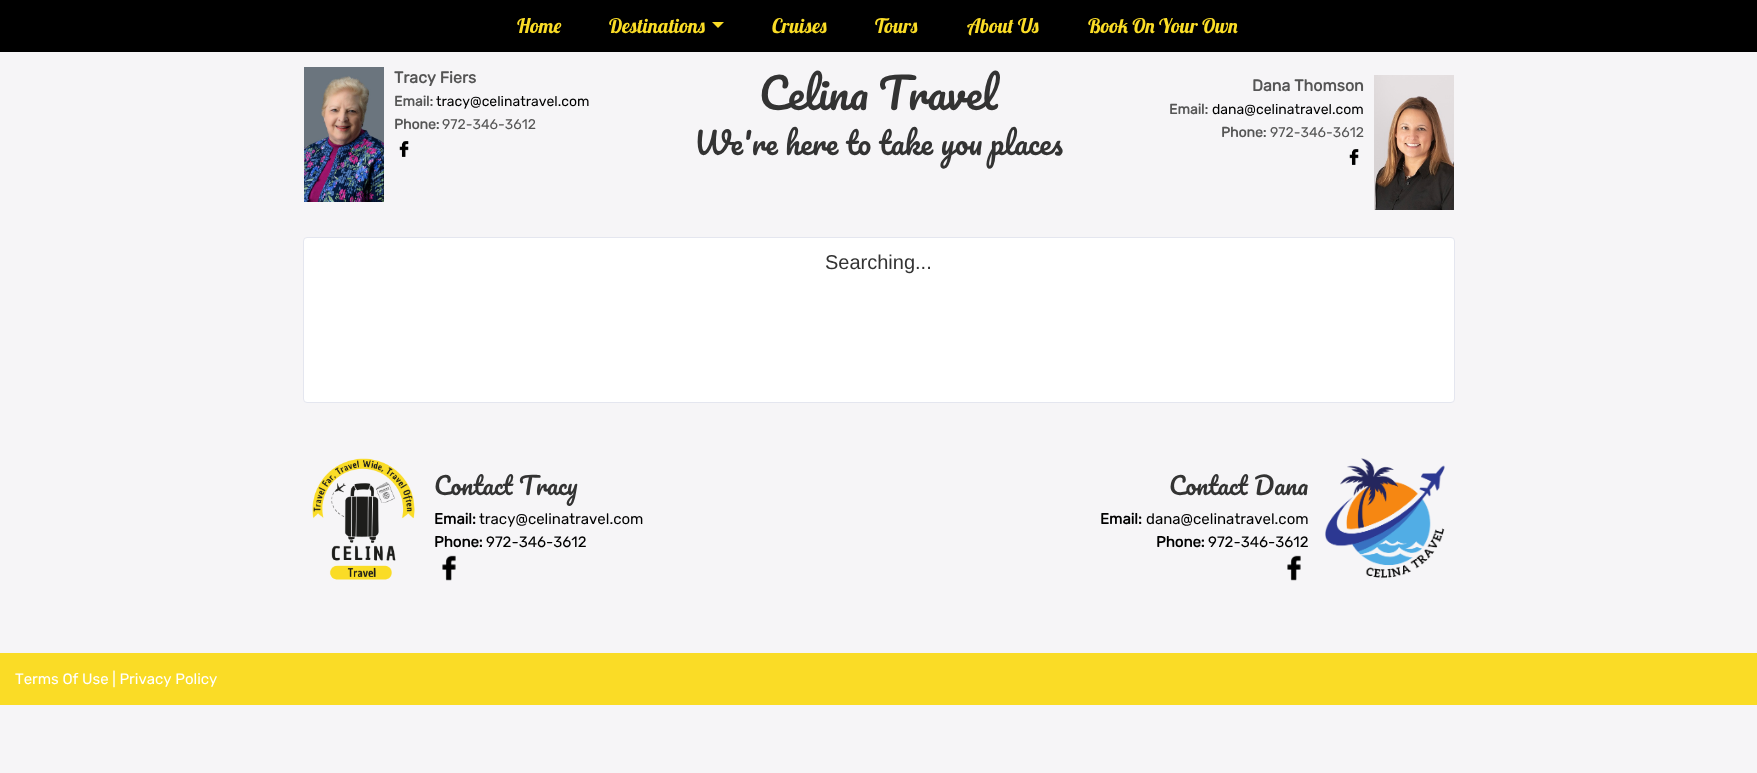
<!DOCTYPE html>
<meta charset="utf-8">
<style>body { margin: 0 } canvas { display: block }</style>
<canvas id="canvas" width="1757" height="773"></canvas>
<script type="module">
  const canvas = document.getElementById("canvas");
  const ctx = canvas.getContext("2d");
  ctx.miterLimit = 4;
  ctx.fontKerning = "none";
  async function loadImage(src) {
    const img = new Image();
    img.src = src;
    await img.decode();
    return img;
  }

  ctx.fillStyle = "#f6f5f7";
  ctx.fillRect(0, 0, 1757, 773);
  ctx.fillStyle = "#000000";
  ctx.fillRect(0, 0, 1757, 52);
  ctx.font = "20px Lobster";
  ctx.fillStyle = "#fadc26";
  ctx.fillText("Home", 517, 33);
  ctx.fillText("Destinations", 609, 33);
  ctx.beginPath();
  ctx.moveTo(712, 22);
  ctx.lineTo(724, 22);
  ctx.lineTo(718, 28);
  ctx.closePath();
  ctx.fill();
  ctx.fillText("Cruises", 772, 33);
  ctx.fillText("Tours", 875, 33);
  ctx.fillText("About Us", 967, 33);
  ctx.fillText("Book On Your Own", 1088, 33);
  ctx.drawImage(await loadImage("img1.png"), 304, 67, 80, 135);
  ctx.font = "bold 16px Rubik";
  ctx.fillStyle = "#555555";
  ctx.fillText("Tracy Fiers", 394, 83);
  ctx.font = "bold 14px Rubik";
  ctx.fillText("Email:", 394, 106);
  ctx.font = "300 14px Rubik";
  ctx.fillStyle = "#000000";
  ctx.fillText("tracy@celinatravel.com", 436, 106);
  ctx.font = "bold 14px Rubik";
  ctx.fillStyle = "#555555";
  ctx.fillText("Phone:", 394, 129);
  ctx.font = "300 14px Rubik";
  ctx.fillText("972-346-3612", 442, 129);
  ctx.drawImage(await loadImage("img2.png"), 399, 141, 10, 16);
  ctx.wordSpacing = "-1px";
  ctx.font = "42px Pacifico";
  ctx.fillStyle = "#333333";
  ctx.fillText("Celina Travel", 759, 110);
  ctx.wordSpacing = "-0.25px";
  ctx.font = "30px Pacifico";
  ctx.fillText("We're here to take you places", 694, 155);
  ctx.wordSpacing = "0px";
  ctx.font = "bold 16px Rubik";
  ctx.fillStyle = "#555555";
  ctx.fillText("Dana Thomson", 1252, 91);
  ctx.font = "bold 14px Rubik";
  ctx.fillText("Email:", 1169, 114);
  ctx.font = "300 14px Rubik";
  ctx.fillStyle = "#000000";
  ctx.fillText("dana@celinatravel.com", 1212, 114);
  ctx.font = "bold 14px Rubik";
  ctx.fillStyle = "#555555";
  ctx.fillText("Phone:", 1221, 137);
  ctx.font = "300 14px Rubik";
  ctx.fillText("972-346-3612", 1270, 137);
  ctx.drawImage(await loadImage("img2.png"), 1349, 149, 10, 16);
  ctx.drawImage(await loadImage("img3.png"), 1374, 75, 80, 135);
  ctx.fillStyle = "#ffffff";
  ctx.beginPath();
  ctx.roundRect(303.5, 237.5, 1151, 165, 3.5);
  ctx.fill();
  ctx.strokeStyle = "#e4e6ef";
  ctx.stroke();
  ctx.font = "20px Liberation Sans";
  ctx.fillStyle = "#333333";
  ctx.fillText("Searching...", 825, 269);
  ctx.drawImage(await loadImage("img4.png"), 312, 458, 103, 122);
  ctx.font = "24px Pacifico";
  ctx.fillText("Contact Tracy", 434, 495);
  ctx.font = "bold 15px Rubik";
  ctx.fillStyle = "#000000";
  ctx.fillText("Email:", 434, 524);
  ctx.font = "300 15px Rubik";
  ctx.fillText("tracy@celinatravel.com", 479, 524);
  ctx.font = "bold 15px Rubik";
  ctx.fillText("Phone:", 434, 547);
  ctx.font = "300 15px Rubik";
  ctx.fillText("972-346-3612", 486, 547);
  ctx.drawImage(await loadImage("img5.png"), 442, 555, 14, 26);
  ctx.font = "24px Pacifico";
  ctx.fillStyle = "#333333";
  ctx.fillText("Contact Dana", 1169, 495);
  ctx.drawImage(await loadImage("img6.png"), 1325, 458, 120, 120);
  ctx.font = "bold 15px Rubik";
  ctx.fillStyle = "#000000";
  ctx.fillText("Email:", 1100, 524);
  ctx.font = "300 15px Rubik";
  ctx.fillText("dana@celinatravel.com", 1146, 524);
  ctx.font = "bold 15px Rubik";
  ctx.fillText("Phone:", 1156, 547);
  ctx.font = "300 15px Rubik";
  ctx.fillText("972-346-3612", 1208, 547);
  ctx.drawImage(await loadImage("img5.png"), 1287, 555, 14, 26);
  ctx.fillStyle = "#fadc26";
  ctx.fillRect(0, 653, 1757, 52);
  ctx.fillStyle = "#ffffff";
  ctx.fillText("Terms Of Use | Privacy Policy", 15, 684);
</script>
